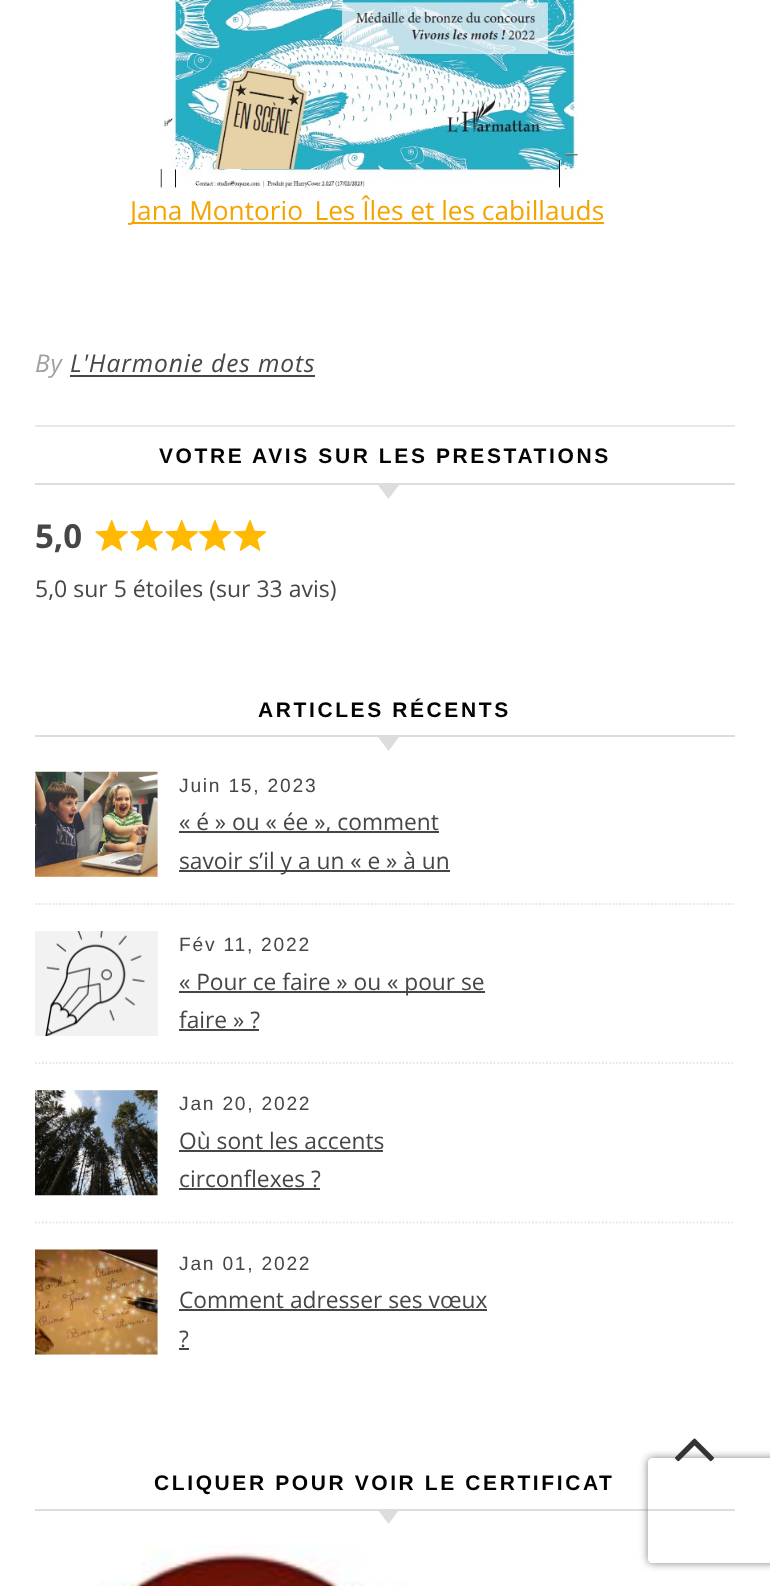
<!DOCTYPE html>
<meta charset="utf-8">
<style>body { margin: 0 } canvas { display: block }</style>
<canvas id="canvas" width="770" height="1586"></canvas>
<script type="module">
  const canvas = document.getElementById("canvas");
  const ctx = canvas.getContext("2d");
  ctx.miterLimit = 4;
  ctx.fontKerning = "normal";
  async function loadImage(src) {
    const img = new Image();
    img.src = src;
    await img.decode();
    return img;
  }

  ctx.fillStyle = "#ffffff";
  ctx.fillRect(0, 0, 770, 1586);
  ctx.drawImage(await loadImage("img1.png"), 159, 0, 419, 189);
  ctx.fillStyle = "#f4a300";
  ctx.fillRect(131, 222, 473, 2);
  ctx.font = "26.25px Open Sans";
  ctx.fillText("Jana Montorio_Les Îles et les cabillauds", 130, 220);
  ctx.fillStyle = "#e8e8e8";
  ctx.fillRect(35, 425, 700, 2);
  ctx.letterSpacing = "0.9px";
  ctx.font = "italic 24.5px Open Sans";
  ctx.fillStyle = "#a1a1a1";
  ctx.fillText("By", 35, 372);
  ctx.fillStyle = "#464646";
  ctx.fillText("L'Harmonie des mots", 70, 372);
  ctx.fillRect(70, 375, 245, 2);
  ctx.fillStyle = "#dddddd";
  ctx.fillRect(35, 483, 700, 2);
  ctx.letterSpacing = "2.6px";
  ctx.font = "bold 21px Liberation Sans";
  ctx.fillStyle = "#030303";
  ctx.fillText("VOTRE AVIS SUR LES PRESTATIONS", 159, 463);
  ctx.fillStyle = "#dddddd";
  ctx.beginPath();
  ctx.moveTo(378, 485);
  ctx.lineTo(399, 485);
  ctx.lineTo(388.5, 499);
  ctx.closePath();
  ctx.fill();
  ctx.letterSpacing = "0px";
  ctx.font = "bold 33px Open Sans";
  ctx.fillStyle = "#464646";
  ctx.fillText("5,0", 35, 548);
  ctx.drawImage(await loadImage("img2.png"), 95, 520, 33, 31);
  ctx.drawImage(await loadImage("img2.png"), 130, 520, 33, 31);
  ctx.drawImage(await loadImage("img2.png"), 165, 520, 33, 31);
  ctx.drawImage(await loadImage("img3.png"), 198, 520, 34, 31);
  ctx.drawImage(await loadImage("img3.png"), 233, 520, 34, 31);
  ctx.font = "23px Open Sans";
  ctx.fillText("5,0 sur 5 étoiles (sur 33 avis)", 35, 597);
  ctx.fillStyle = "#dddddd";
  ctx.fillRect(35, 735, 700, 2);
  ctx.letterSpacing = "2.6px";
  ctx.font = "bold 21px Liberation Sans";
  ctx.fillStyle = "#030303";
  ctx.fillText("ARTICLES RÉCENTS", 258, 717);
  ctx.fillStyle = "#dddddd";
  ctx.beginPath();
  ctx.moveTo(378, 737);
  ctx.lineTo(399, 737);
  ctx.lineTo(388.5, 751);
  ctx.closePath();
  ctx.fill();
  ctx.beginPath();
  ctx.moveTo(35, 904);
  ctx.lineTo(735, 904);
  ctx.strokeStyle = "#e8e8e8";
  ctx.lineWidth = 1.8;
  ctx.setLineDash([1.75, 1.75]);
  ctx.stroke();
  ctx.fillStyle = "#f2f2f2";
  ctx.fillRect(35, 772, 123, 105);
  ctx.drawImage(await loadImage("img4.png"), 35, 771, 123, 106);
  ctx.letterSpacing = "1.75px";
  ctx.font = "19.25px Liberation Sans";
  ctx.fillStyle = "#464646";
  ctx.fillText("Juin 15, 2023", 179, 792);
  ctx.fillRect(179, 831, 260, 2);
  ctx.letterSpacing = "0px";
  ctx.font = "22.75px Open Sans";
  ctx.fillText("« é » ou « ée », comment", 179, 830);
  ctx.fillRect(179, 870, 271, 2);
  ctx.fillText("savoir s’il y a un « e » à un", 179, 869);
  ctx.beginPath();
  ctx.moveTo(35, 1063);
  ctx.lineTo(735, 1063);
  ctx.stroke();
  ctx.fillStyle = "#f2f2f2";
  ctx.fillRect(35, 931, 123, 105);
  ctx.drawImage(await loadImage("img5.png"), 45, 931, 100, 105);
  ctx.letterSpacing = "1.75px";
  ctx.font = "19.25px Liberation Sans";
  ctx.fillStyle = "#464646";
  ctx.fillText("Fév 11, 2022", 179, 951);
  ctx.fillRect(179, 991, 306, 2);
  ctx.letterSpacing = "0px";
  ctx.font = "22.75px Open Sans";
  ctx.fillText("« Pour ce faire » ou « pour se", 179, 990);
  ctx.fillText("faire » ?", 179, 1028);
  ctx.fillRect(179, 1029, 80, 2);
  ctx.beginPath();
  ctx.moveTo(35, 1222.5);
  ctx.lineTo(735, 1222.5);
  ctx.stroke();
  ctx.fillStyle = "#f2f2f2";
  ctx.fillRect(35, 1090, 123, 105);
  ctx.drawImage(await loadImage("img6.png"), 35, 1090, 123, 106);
  ctx.letterSpacing = "1.75px";
  ctx.font = "19.25px Liberation Sans";
  ctx.fillStyle = "#464646";
  ctx.fillText("Jan 20, 2022", 179, 1110);
  ctx.letterSpacing = "0px";
  ctx.font = "22.75px Open Sans";
  ctx.fillText("Où sont les accents", 179, 1149);
  ctx.fillRect(179, 1150, 204, 2);
  ctx.fillText("circonflexes ?", 179, 1187);
  ctx.fillRect(179, 1188, 141, 2);
  ctx.fillStyle = "#f2f2f2";
  ctx.fillRect(35, 1250, 123, 105);
  ctx.drawImage(await loadImage("img7.png"), 35, 1249, 123, 106);
  ctx.letterSpacing = "1.75px";
  ctx.font = "19.25px Liberation Sans";
  ctx.fillStyle = "#464646";
  ctx.fillText("Jan 01, 2022", 179, 1270);
  ctx.letterSpacing = "0px";
  ctx.font = "22.75px Open Sans";
  ctx.fillText("Comment adresser ses vœux", 179, 1308);
  ctx.fillRect(179, 1309, 308, 2);
  ctx.fillText("?", 179, 1347);
  ctx.fillRect(179, 1348, 10, 2);
  ctx.fillStyle = "#dddddd";
  ctx.fillRect(35, 1509, 700, 2);
  ctx.letterSpacing = "2.6px";
  ctx.font = "bold 21px Liberation Sans";
  ctx.fillStyle = "#030303";
  ctx.fillText("CLIQUER POUR VOIR LE CERTIFICAT", 154, 1490);
  ctx.fillStyle = "#dddddd";
  ctx.beginPath();
  ctx.moveTo(378, 1510);
  ctx.lineTo(399, 1510);
  ctx.lineTo(388.5, 1524);
  ctx.closePath();
  ctx.fill();
  ctx.drawImage(await loadImage("img8.png"), 98, 1545, 309, 41);
  ctx.save();
  ctx.beginPath();
  ctx.moveTo(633, 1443);
  ctx.lineTo(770, 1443);
  ctx.lineTo(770, 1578);
  ctx.lineTo(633, 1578);
  ctx.closePath();
  ctx.moveTo(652, 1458);
  ctx.lineTo(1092, 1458);
  ctx.bezierCurveTo(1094, 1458, 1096, 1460, 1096, 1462);
  ctx.lineTo(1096, 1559);
  ctx.bezierCurveTo(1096, 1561, 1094, 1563, 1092, 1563);
  ctx.lineTo(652, 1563);
  ctx.bezierCurveTo(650, 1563, 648, 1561, 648, 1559);
  ctx.lineTo(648, 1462);
  ctx.bezierCurveTo(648, 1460, 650, 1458, 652, 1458);
  ctx.closePath();
  ctx.clip("evenodd");
  ctx.fillStyle = "#808080";
  ctx.filter = "blur(4.5px)";
  ctx.beginPath();
  ctx.roundRect(648, 1458, 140, 105, 4);
  ctx.fill();
  ctx.filter = "none";
  ctx.restore();
  ctx.drawImage(await loadImage("img9.png"), 675, 1438, 39, 24);
</script>
